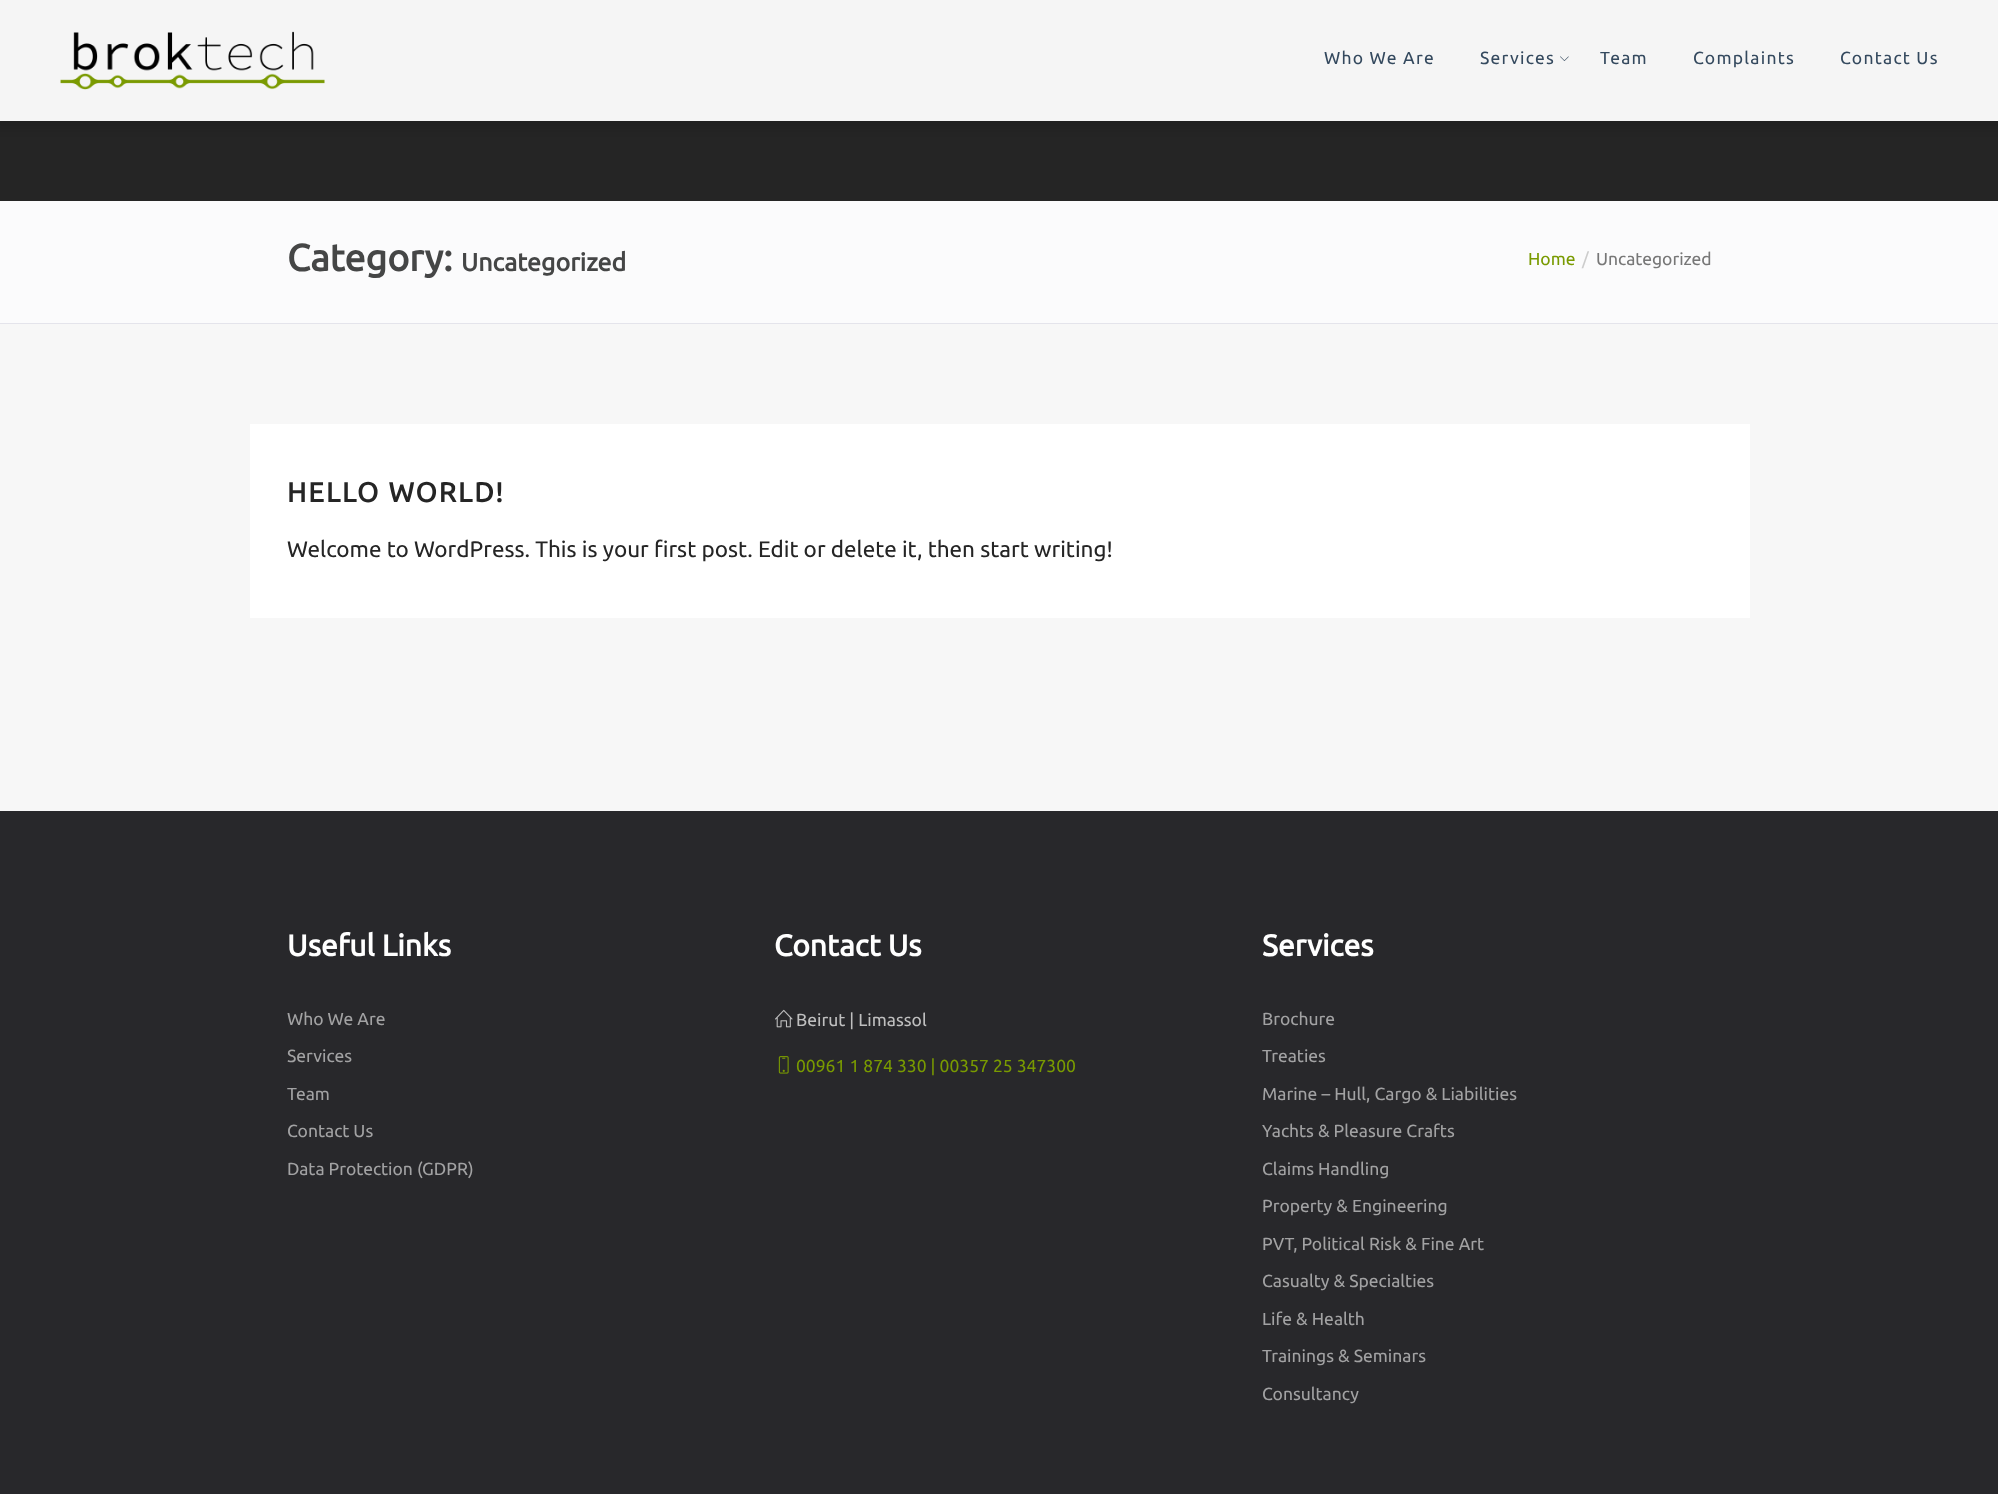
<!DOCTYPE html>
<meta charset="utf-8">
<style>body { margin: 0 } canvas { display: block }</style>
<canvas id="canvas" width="1998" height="1494"></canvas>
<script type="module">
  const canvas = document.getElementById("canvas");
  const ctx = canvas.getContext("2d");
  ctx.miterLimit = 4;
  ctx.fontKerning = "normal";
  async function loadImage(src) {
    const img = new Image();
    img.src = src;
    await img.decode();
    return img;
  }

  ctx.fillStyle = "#f7f7f7";
  ctx.fillRect(0, 0, 1998, 1494);
  ctx.fillStyle = "#252525";
  ctx.fillRect(0, 121, 1998, 80);
  ctx.fillStyle = "rgba(0, 0, 0, 0.12)";
  ctx.filter = "blur(5px)";
  ctx.beginPath();
  ctx.rect(-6, -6, 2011, 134);
  ctx.fill();
  ctx.filter = "none";
  ctx.fillStyle = "#f5f5f5";
  ctx.fillRect(0, 0, 1998, 121);
  ctx.drawImage(await loadImage("img1.png"), 60, 31, 265, 59);
  ctx.letterSpacing = "1.25px";
  ctx.font = "17.5px Ubuntu";
  ctx.fillStyle = "#34495e";
  ctx.fillText("Who We Are", 1324, 64);
  ctx.fillText("Services", 1480, 64);
  ctx.drawImage(await loadImage("img2.png"), 1560, 56, 9, 5);
  ctx.fillText("Team", 1600, 64);
  ctx.fillText("Complaints", 1693, 64);
  ctx.fillText("Contact Us", 1840, 64);
  ctx.fillStyle = "#fbfbfc";
  ctx.fillRect(0, 201, 1998, 122);
  ctx.fillStyle = "#e4e4eb";
  ctx.fillRect(0, 323, 1998, 1);
  ctx.letterSpacing = "0px";
  ctx.font = "bold 37.5px Ubuntu";
  ctx.fillStyle = "#454646";
  ctx.fillText("Category:", 287, 271);
  ctx.font = "bold 25px Ubuntu";
  ctx.fillText("Uncategorized", 461, 271);
  ctx.font = "17.5px Ubuntu";
  ctx.fillStyle = "#799a01";
  ctx.fillText("Home", 1528, 265);
  ctx.fillStyle = "#cccccc";
  ctx.fillText("/", 1582, 265);
  ctx.fillStyle = "#777777";
  ctx.fillText("Uncategorized", 1596, 265);
  ctx.fillStyle = "#ffffff";
  ctx.fillRect(250, 424, 1500, 194);
  ctx.letterSpacing = "1.9px";
  ctx.font = "bold 27.5px Ubuntu";
  ctx.fillStyle = "#252525";
  ctx.fillText("HELLO WORLD!", 287, 502);
  ctx.letterSpacing = "0px";
  ctx.font = "22.5px Ubuntu";
  ctx.fillText("Welcome to WordPress. This is your first post. Edit or delete it, then start writing!", 287, 557);
  ctx.fillStyle = "#28282b";
  ctx.fillRect(0, 811, 1998, 683);
  ctx.font = "bold 30px Ubuntu";
  ctx.fillStyle = "#ffffff";
  ctx.fillText("Useful Links", 287, 956);
  ctx.font = "17.5px Ubuntu";
  ctx.fillStyle = "#a2a2a3";
  ctx.fillText("Who We Are", 287, 1025);
  ctx.fillText("Services", 287, 1062);
  ctx.fillText("Team", 287, 1100);
  ctx.fillText("Contact Us", 287, 1137);
  ctx.fillText("Data Protection (GDPR)", 287, 1175);
  ctx.font = "bold 30px Ubuntu";
  ctx.fillStyle = "#ffffff";
  ctx.fillText("Contact Us", 774, 956);
  ctx.drawImage(await loadImage("img3.png"), 775, 1009, 18, 19);
  ctx.font = "17.5px Ubuntu";
  ctx.fillStyle = "#bfbfbf";
  ctx.fillText("Beirut | Limassol", 796, 1026);
  ctx.drawImage(await loadImage("img4.png"), 778, 1056, 11, 18);
  ctx.fillStyle = "#799a01";
  ctx.fillText("00961 1 874 330 | 00357 25 347300", 796, 1072);
  ctx.font = "bold 30px Ubuntu";
  ctx.fillStyle = "#ffffff";
  ctx.fillText("Services", 1262, 956);
  ctx.font = "17.5px Ubuntu";
  ctx.fillStyle = "#a2a2a3";
  ctx.fillText("Brochure", 1262, 1025);
  ctx.fillText("Treaties", 1262, 1062);
  ctx.fillText("Marine – Hull, Cargo & Liabilities", 1262, 1100);
  ctx.fillText("Yachts & Pleasure Crafts", 1262, 1137);
  ctx.fillText("Claims Handling", 1262, 1175);
  ctx.fillText("Property & Engineering", 1262, 1212);
  ctx.fillText("PVT, Political Risk & Fine Art", 1262, 1250);
  ctx.fillText("Casualty & Specialties", 1262, 1287);
  ctx.fillText("Life & Health", 1262, 1325);
  ctx.fillText("Trainings & Seminars", 1262, 1362);
  ctx.fillText("Consultancy", 1262, 1400);
</script>
